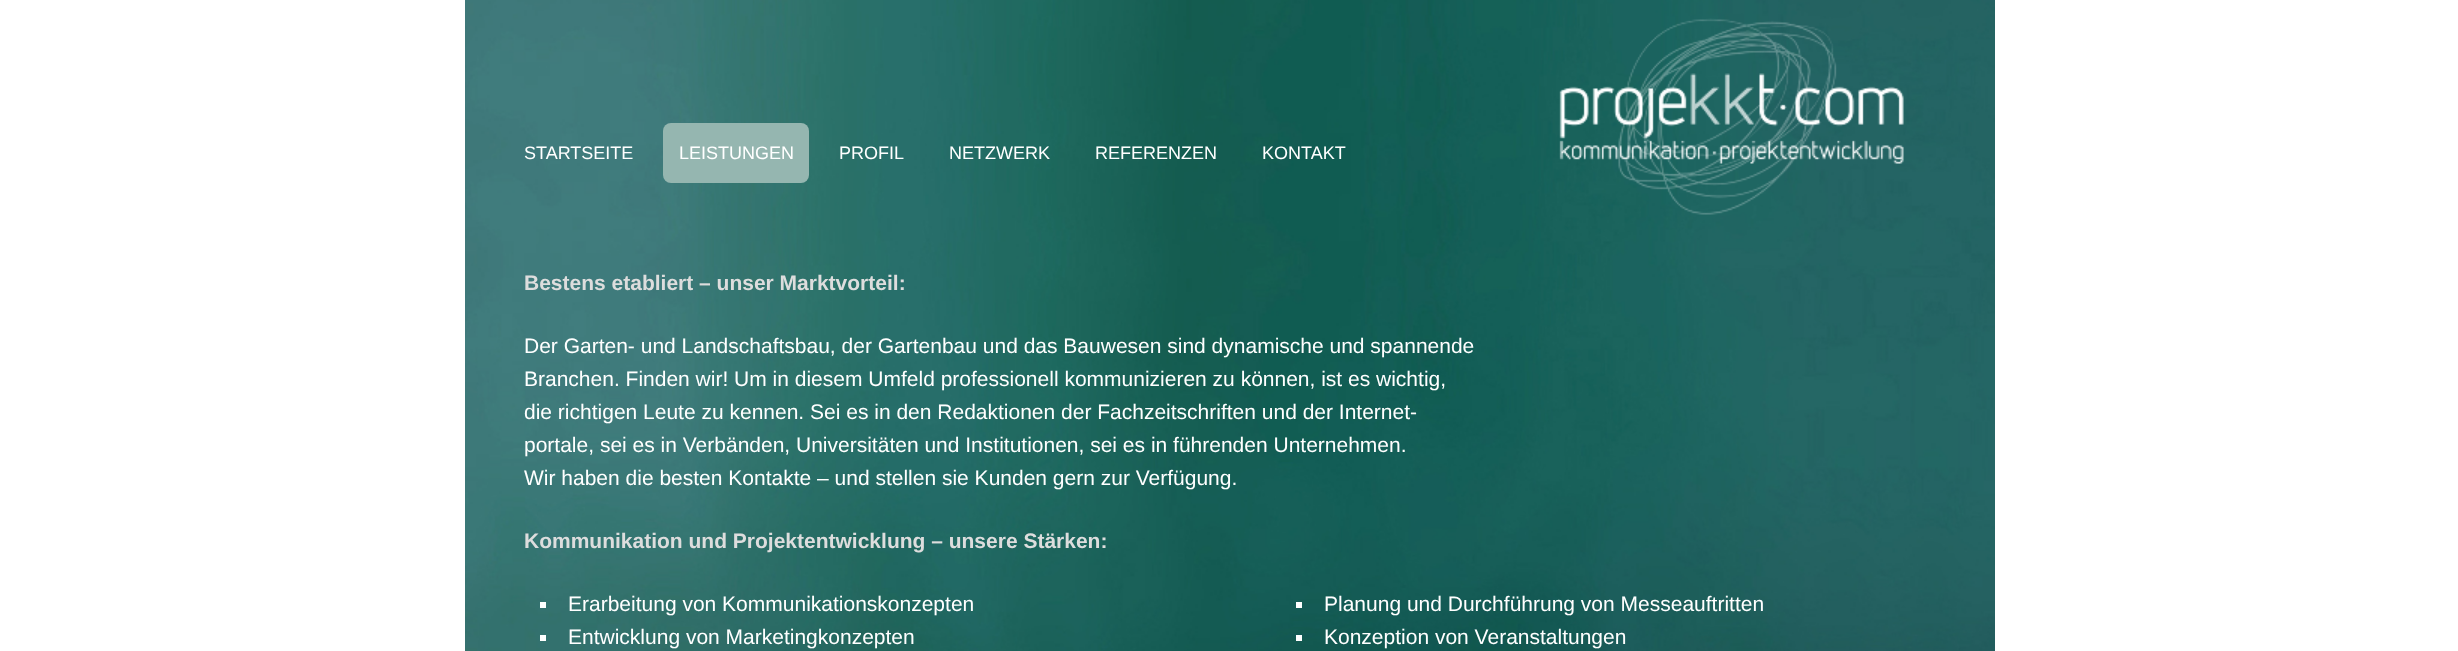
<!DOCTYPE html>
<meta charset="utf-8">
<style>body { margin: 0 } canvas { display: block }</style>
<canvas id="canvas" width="2458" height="651"></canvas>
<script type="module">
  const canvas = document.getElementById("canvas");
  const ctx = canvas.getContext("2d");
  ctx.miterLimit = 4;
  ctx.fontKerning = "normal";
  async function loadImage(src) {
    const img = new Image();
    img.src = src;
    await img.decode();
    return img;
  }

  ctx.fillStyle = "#ffffff";
  ctx.fillRect(0, 0, 2458, 651);
  ctx.drawImage(await loadImage("img1.png"), 465, 0, 1530, 651);
  ctx.font = "18px Liberation Sans";
  ctx.fillText("STARTSEITE", 524, 159);
  ctx.fillStyle = "#95b6b0";
  ctx.beginPath();
  ctx.roundRect(663, 123, 146, 60, 8);
  ctx.fill();
  ctx.fillStyle = "#ffffff";
  ctx.fillText("LEISTUNGEN", 679, 159);
  ctx.fillText("PROFIL", 839, 159);
  ctx.fillText("NETZWERK", 949, 159);
  ctx.fillText("REFERENZEN", 1095, 159);
  ctx.fillText("KONTAKT", 1262, 159);
  ctx.drawImage(await loadImage("img2.png"), 1559, 18, 345, 197);
  ctx.font = "bold 21px Liberation Sans";
  ctx.fillStyle = "#dddddd";
  ctx.fillText("Bestens etabliert – unser Marktvorteil:", 524, 290);
  ctx.font = "21px Liberation Sans";
  ctx.fillStyle = "#ffffff";
  ctx.fillText("Der Garten- und Landschaftsbau, der Gartenbau und das Bauwesen sind dynamische und spannende", 524, 353);
  ctx.fillText("Branchen. Finden wir! Um in diesem Umfeld professionell kommunizieren zu können, ist es wichtig,", 524, 386);
  ctx.fillText("die richtigen Leute zu kennen. Sei es in den Redaktionen der Fachzeitschriften und der Internet-", 524, 419);
  ctx.fillText("portale, sei es in Verbänden, Universitäten und Institutionen, sei es in führenden Unternehmen.", 524, 452);
  ctx.fillText("Wir haben die besten Kontakte – und stellen sie Kunden gern zur Verfügung.", 524, 485);
  ctx.font = "bold 21px Liberation Sans";
  ctx.fillStyle = "#dddddd";
  ctx.fillText("Kommunikation und Projektentwicklung – unsere Stärken:", 524, 548);
  ctx.fillStyle = "#ffffff";
  ctx.fillRect(540, 602, 6, 6);
  ctx.font = "21px Liberation Sans";
  ctx.fillText("Erarbeitung von Kommunikationskonzepten", 568, 611);
  ctx.fillRect(540, 635, 6, 6);
  ctx.fillText("Entwicklung von Marketingkonzepten", 568, 644);
  ctx.fillRect(1296, 602, 6, 6);
  ctx.fillText("Planung und Durchführung von Messeauftritten", 1324, 611);
  ctx.fillRect(1296, 635, 6, 6);
  ctx.fillText("Konzeption von Veranstaltungen", 1324, 644);
</script>
